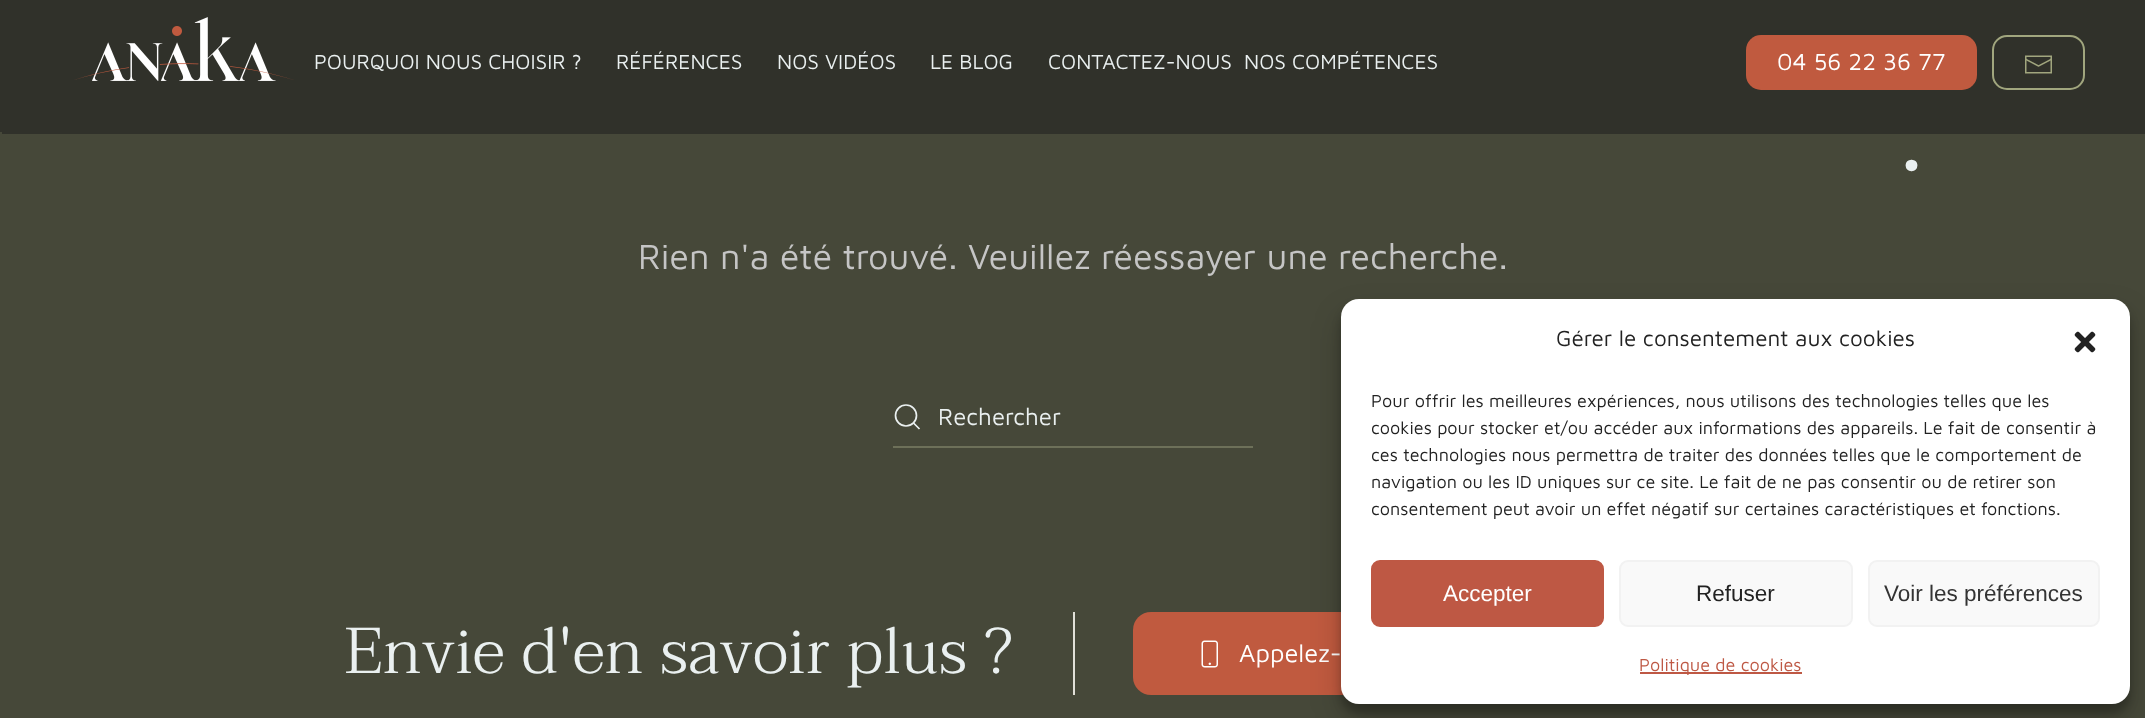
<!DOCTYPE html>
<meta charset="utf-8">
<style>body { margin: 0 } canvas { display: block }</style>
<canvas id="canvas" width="2145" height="718"></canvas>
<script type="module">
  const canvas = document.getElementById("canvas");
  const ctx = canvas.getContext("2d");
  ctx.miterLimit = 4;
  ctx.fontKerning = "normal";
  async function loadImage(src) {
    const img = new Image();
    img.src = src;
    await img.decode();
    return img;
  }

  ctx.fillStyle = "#464839";
  ctx.fillRect(0, 0, 2145, 718);
  ctx.fillStyle = "#30312a";
  ctx.beginPath();
  ctx.moveTo(2, 132);
  ctx.lineTo(2, 134);
  ctx.lineTo(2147, 134);
  ctx.lineTo(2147, 2);
  ctx.lineTo(2145, 2);
  ctx.lineTo(2145, 132);
  ctx.closePath();
  ctx.fill();
  ctx.fillRect(0, 0, 2145, 132);
  ctx.drawImage(await loadImage("img1.png"), 74, 17, 220, 64);
  ctx.font = "21px Maven Pro";
  ctx.fillStyle = "#eaf0f0";
  ctx.fillText("POURQUOI NOUS CHOISIR ?", 314, 69);
  ctx.fillText("RÉFÉRENCES", 616, 69);
  ctx.fillText("NOS VIDÉOS", 777, 69);
  ctx.fillText("LE BLOG", 930, 69);
  ctx.fillText("CONTACTEZ-NOUS", 1048, 69);
  ctx.fillText("NOS COMPÉTENCES", 1244, 69);
  ctx.fillStyle = "#c05a3f";
  ctx.beginPath();
  ctx.roundRect(1746, 35, 231, 55, 15);
  ctx.fill();
  ctx.font = "24px Maven Pro";
  ctx.fillStyle = "#ffffff";
  ctx.fillText("04 56 22 36 77", 1777, 70);
  ctx.beginPath();
  ctx.roundRect(1993, 36, 91, 53, 14);
  ctx.strokeStyle = "#a1a67e";
  ctx.lineWidth = 2;
  ctx.stroke();
  ctx.drawImage(await loadImage("img2.png"), 2025, 55, 27, 19);
  ctx.font = "300 114px Taviraj";
  ctx.fillStyle = "#eaf0f0";
  ctx.fillText(".", 1898, 170);
  ctx.font = "36px Maven Pro";
  ctx.fillStyle = "#c5c5c5";
  ctx.fillText("Rien n'a été trouvé. Veuillez réessayer une recherche.", 638, 269);
  ctx.beginPath();
  ctx.arc(906, 415.5, 10.5, 0, Math.PI * 2);
  ctx.strokeStyle = "#eaf0f0";
  ctx.lineWidth = 1.7;
  ctx.stroke();
  ctx.beginPath();
  ctx.moveTo(913.5, 423);
  ctx.lineTo(919.5, 429);
  ctx.closePath();
  ctx.stroke();
  ctx.fillStyle = "#6d7059";
  ctx.fillRect(893, 446, 360, 2);
  ctx.font = "24px Maven Pro";
  ctx.fillStyle = "#eaf0f0";
  ctx.fillText("Rechercher", 938, 425);
  ctx.font = "300 64.5px Taviraj";
  ctx.fillText("Envie d'en savoir plus ?", 345, 673);
  ctx.fillStyle = "#e1e0d8";
  ctx.fillRect(1073, 612, 2, 83);
  ctx.fillStyle = "#c05a3f";
  ctx.beginPath();
  ctx.roundRect(1133, 612, 343, 83, 18);
  ctx.fill();
  ctx.drawImage(await loadImage("img3.png"), 1201, 640, 17, 28);
  ctx.font = "25.5px Maven Pro";
  ctx.fillStyle = "#ffffff";
  ctx.fillText("Appelez-", 1239, 662);
  ctx.fillStyle = "rgba(0, 0, 0, 0.23)";
  ctx.filter = "blur(4.5px)";
  ctx.beginPath();
  ctx.roundRect(1341, 308, 789, 405, 18);
  ctx.fill();
  ctx.filter = "none";
  ctx.fillStyle = "rgba(0, 0, 0, 0.19)";
  ctx.filter = "blur(15px)";
  ctx.beginPath();
  ctx.roundRect(1341, 314, 789, 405, 18);
  ctx.fill();
  ctx.filter = "none";
  ctx.fillStyle = "#ffffff";
  ctx.beginPath();
  ctx.roundRect(1341, 299, 789, 405, 18);
  ctx.fill();
  ctx.font = "22.5px Maven Pro";
  ctx.fillStyle = "#222222";
  ctx.fillText("Gérer le consentement aux cookies", 1556, 346);
  ctx.drawImage(await loadImage("img4.png"), 2074, 331, 22, 22);
  ctx.font = "18px Maven Pro";
  ctx.fillText("Pour offrir les meilleures expériences, nous utilisons des technologies telles que les", 1371, 407);
  ctx.fillText("cookies pour stocker et/ou accéder aux informations des appareils. Le fait de consentir à", 1371, 434);
  ctx.fillText("ces technologies nous permettra de traiter des données telles que le comportement de", 1371, 461);
  ctx.fillText("navigation ou les ID uniques sur ce site. Le fait de ne pas consentir ou de retirer son", 1371, 488);
  ctx.fillText("consentement peut avoir un effet négatif sur certaines caractéristiques et fonctions.", 1371, 515);
  ctx.fillStyle = "#be5844";
  ctx.beginPath();
  ctx.roundRect(1372, 561, 231, 65, 8);
  ctx.fill();
  ctx.strokeStyle = "#be5844";
  ctx.lineWidth = 2;
  ctx.stroke();
  ctx.font = "22.5px Liberation Sans";
  ctx.fillStyle = "#ffffff";
  ctx.fillText("Accepter", 1443, 601);
  ctx.fillStyle = "#f9f9f9";
  ctx.beginPath();
  ctx.roundRect(1620, 561, 232, 65, 8);
  ctx.fill();
  ctx.strokeStyle = "#f2f2f2";
  ctx.stroke();
  ctx.fillStyle = "#222222";
  ctx.fillText("Refuser", 1696, 601);
  ctx.fillStyle = "#f9f9f9";
  ctx.beginPath();
  ctx.roundRect(1869, 561, 230, 65, 8);
  ctx.fill();
  ctx.stroke();
  ctx.fillStyle = "#333333";
  ctx.fillText("Voir les préférences", 1884, 601);
  ctx.fillStyle = "#be5844";
  ctx.fillRect(1640, 672, 162, 2);
  ctx.font = "18px Maven Pro";
  ctx.fillText("Politique de cookies", 1639, 671);
</script>
